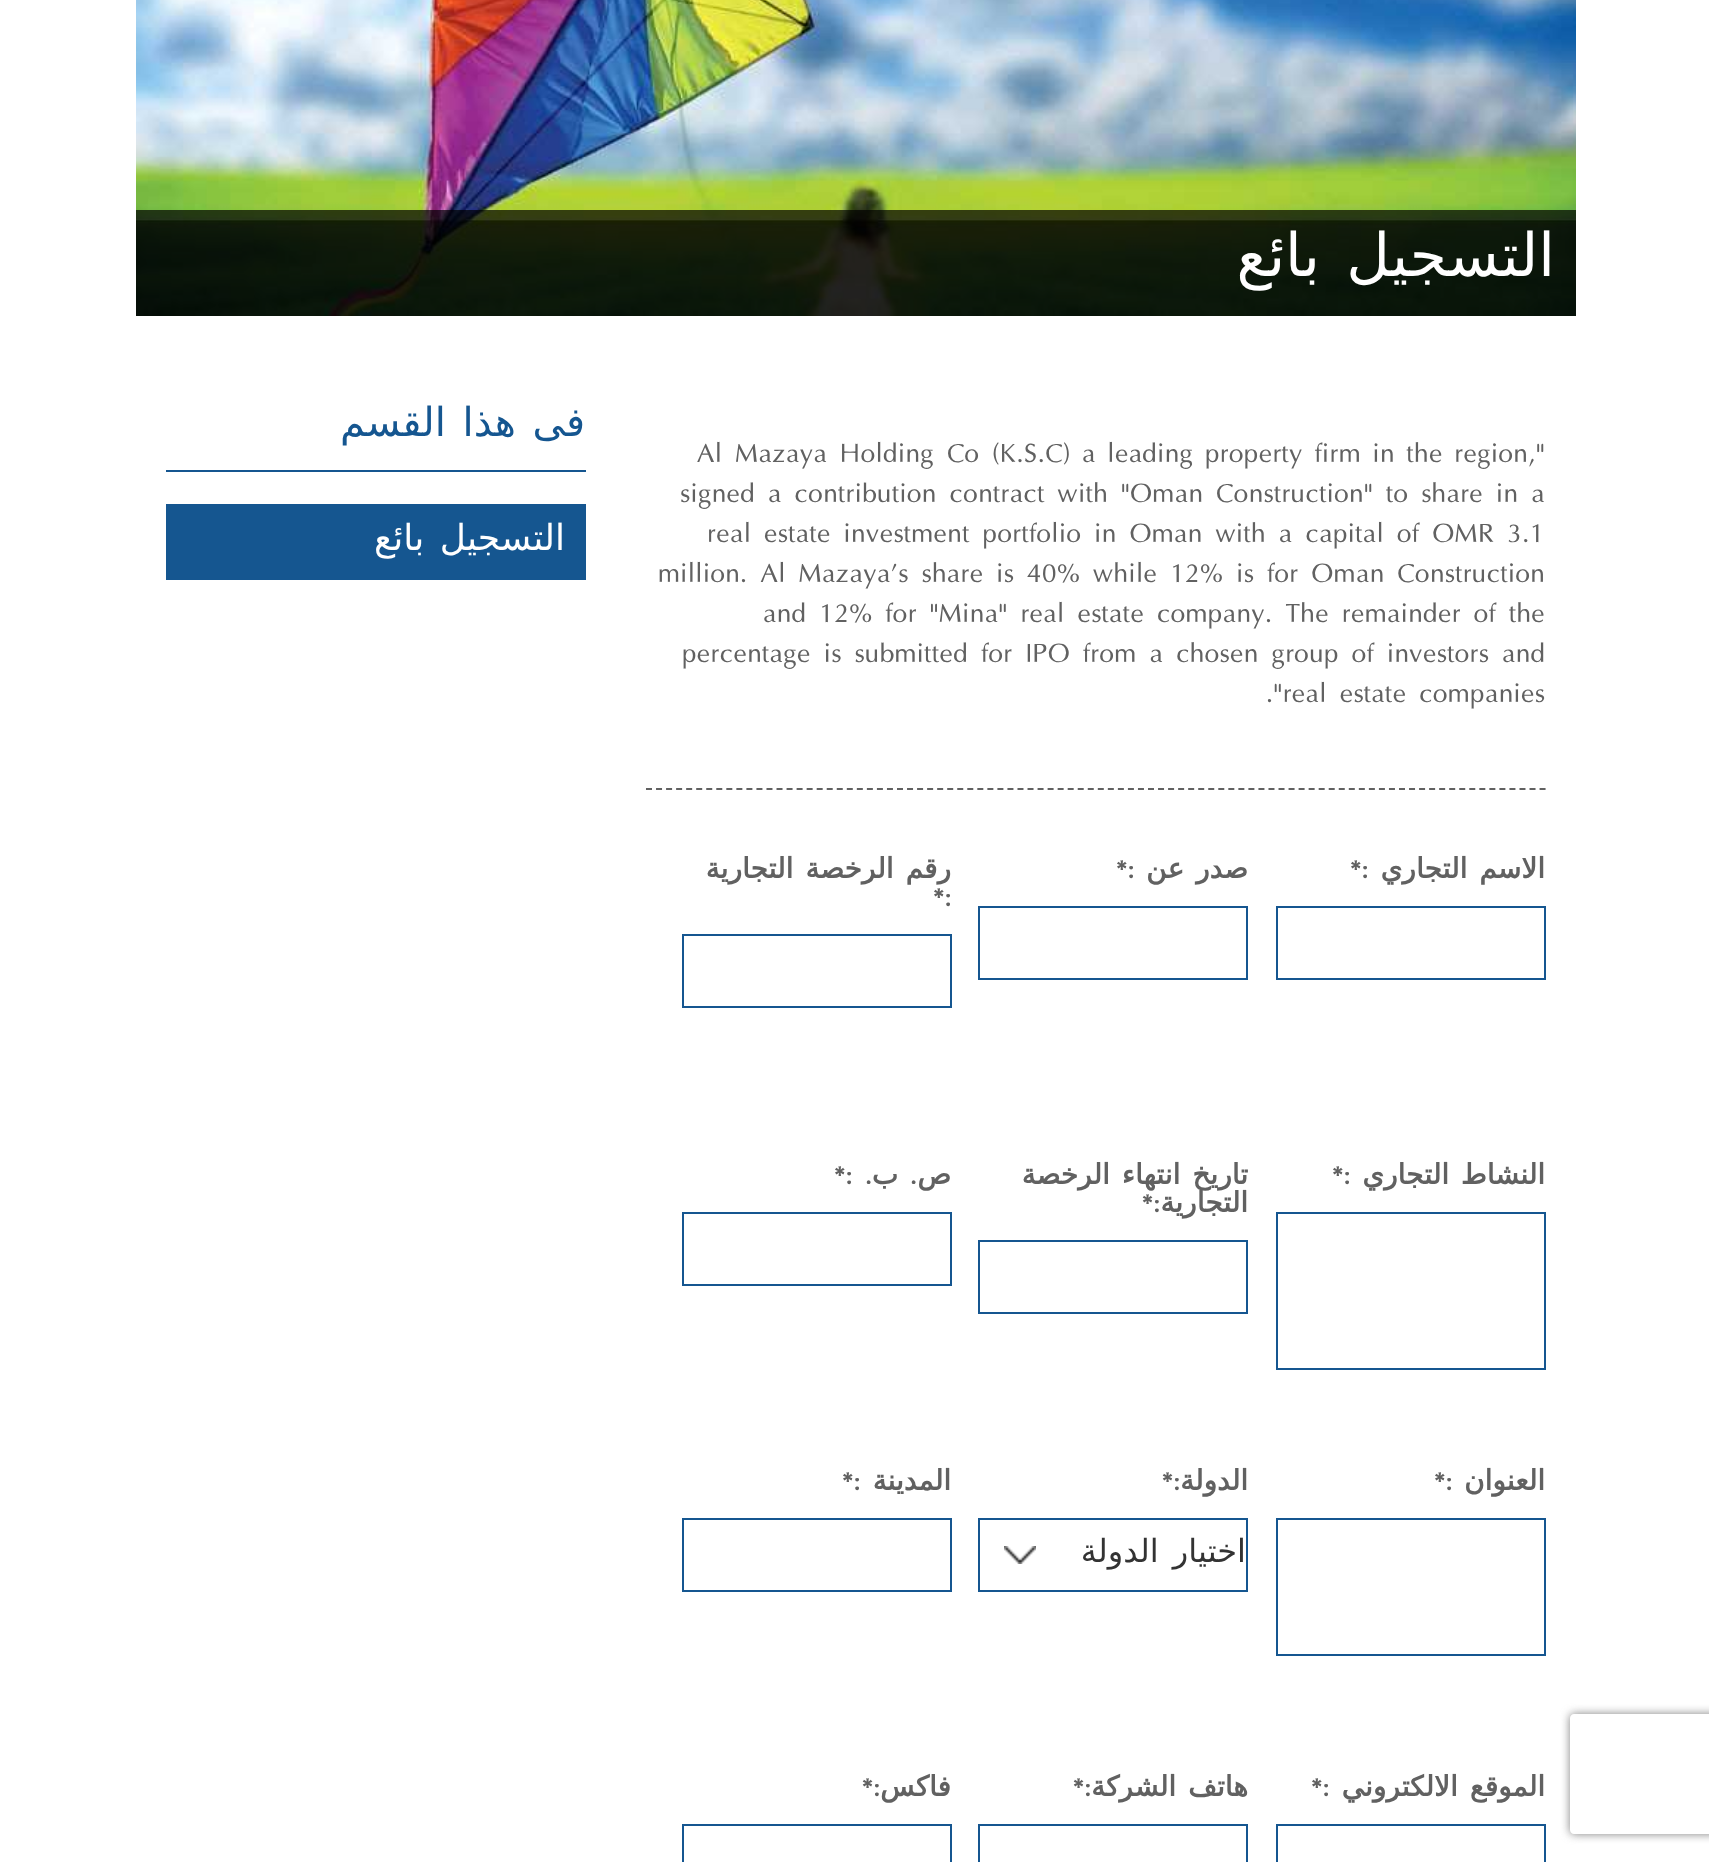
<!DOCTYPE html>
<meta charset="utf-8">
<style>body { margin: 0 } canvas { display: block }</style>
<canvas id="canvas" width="1709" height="1862"></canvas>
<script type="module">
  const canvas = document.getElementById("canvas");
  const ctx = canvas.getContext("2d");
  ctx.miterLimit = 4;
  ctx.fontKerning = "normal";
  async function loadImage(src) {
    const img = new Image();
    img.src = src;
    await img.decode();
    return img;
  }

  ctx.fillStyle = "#ffffff";
  ctx.fillRect(0, 0, 1709, 1862);
  ctx.drawImage(await loadImage("img1.png"), 136, 0, 1440, 316);
  ctx.fillStyle = "rgba(0, 0, 0, 0.7)";
  ctx.fillRect(136, 210, 1440, 106);
  ctx.wordSpacing = "7px";
  ctx.direction = "rtl";
  ctx.font = "60px DejaVu Sans";
  ctx.fillStyle = "#ffffff";
  ctx.fillText("التسجيل بائع", 1555, 276);
  ctx.fillStyle = "#155690";
  ctx.fillRect(166, 470, 420, 2);
  ctx.wordSpacing = "4px";
  ctx.font = "40px DejaVu Sans";
  ctx.fillText("فى هذا القسم", 585, 436);
  ctx.fillRect(166, 504, 420, 76);
  ctx.font = "36px DejaVu Sans";
  ctx.fillStyle = "#ffffff";
  ctx.fillText("التسجيل بائع", 565, 550);
  ctx.wordSpacing = "0px";
  ctx.direction = "ltr";
  ctx.font = "100 30px Optima";
  ctx.fillStyle = "#616161";
  ctx.fillText("Al Mazaya Holding Co (K.S.C)", 697, 462);
  ctx.wordSpacing = "-1.25px";
  ctx.fillText("a leading property firm in the region,", 1082, 462);
  ctx.wordSpacing = "0px";
  ctx.fillText("\"", 1536, 462);
  ctx.fillText("signed a contribution contract with \"Oman Construction\" to share in a", 680, 502);
  ctx.fillText("real estate investment portfolio in Oman with a capital of OMR 3.1", 707, 542);
  ctx.fillText("million. Al Mazaya's share is 40% while 12% is for Oman Construction", 658, 582);
  ctx.fillText("and 12% for \"Mina\" real estate company. The remainder of the", 763, 622);
  ctx.fillText("percentage is submitted for IPO from a chosen group of investors and", 682, 662);
  ctx.fillText(".\"real estate companies", 1266, 702);
  ctx.beginPath();
  ctx.moveTo(646, 789);
  ctx.lineTo(1546, 789);
  ctx.strokeStyle = "#616161";
  ctx.lineWidth = 2;
  ctx.setLineDash([6, 4.04]);
  ctx.stroke();
  ctx.wordSpacing = "3px";
  ctx.direction = "rtl";
  ctx.font = "bold 28px DejaVu Sans";
  ctx.fillText("رقم الرخصة التجارية", 951, 878);
  ctx.wordSpacing = "0px";
  ctx.direction = "ltr";
  ctx.font = "bold 28px Optima";
  ctx.fillText("*:", 933, 906);
  ctx.strokeStyle = "#155690";
  ctx.setLineDash([]);
  ctx.strokeRect(683, 935, 268, 72);
  ctx.fillText("*:", 1116, 878);
  ctx.wordSpacing = "3px";
  ctx.direction = "rtl";
  ctx.font = "bold 28px DejaVu Sans";
  ctx.fillText("صدر عن", 1248, 878);
  ctx.strokeRect(979, 907, 268, 72);
  ctx.wordSpacing = "0px";
  ctx.direction = "ltr";
  ctx.font = "bold 28px Optima";
  ctx.fillText("*:", 1350, 878);
  ctx.wordSpacing = "3px";
  ctx.direction = "rtl";
  ctx.font = "bold 28px DejaVu Sans";
  ctx.fillText("الاسم التجاري", 1545, 878);
  ctx.strokeRect(1277, 907, 268, 72);
  ctx.wordSpacing = "0px";
  ctx.direction = "ltr";
  ctx.font = "bold 28px Optima";
  ctx.fillText("*:", 834, 1184);
  ctx.direction = "rtl";
  ctx.fillText(".", 872, 1184);
  ctx.font = "bold 28px DejaVu Sans";
  ctx.fillText("ب", 898, 1184);
  ctx.font = "bold 28px Optima";
  ctx.fillText(".", 917, 1184);
  ctx.font = "bold 28px DejaVu Sans";
  ctx.fillText("ص", 951, 1184);
  ctx.strokeRect(683, 1213, 268, 72);
  ctx.wordSpacing = "3px";
  ctx.fillText("تاريخ انتهاء الرخصة", 1248, 1184);
  ctx.wordSpacing = "0px";
  ctx.font = "bold 28px Optima";
  ctx.fillText(":*", 1160, 1212);
  ctx.font = "bold 28px DejaVu Sans";
  ctx.fillText("التجارية", 1248, 1212);
  ctx.strokeRect(979, 1241, 268, 72);
  ctx.direction = "ltr";
  ctx.font = "bold 28px Optima";
  ctx.fillText("*:", 1332, 1184);
  ctx.wordSpacing = "3px";
  ctx.direction = "rtl";
  ctx.font = "bold 28px DejaVu Sans";
  ctx.fillText("النشاط التجاري", 1545, 1184);
  ctx.strokeRect(1277, 1213, 268, 156);
  ctx.wordSpacing = "0px";
  ctx.direction = "ltr";
  ctx.font = "bold 28px Optima";
  ctx.fillText("*:", 842, 1490);
  ctx.direction = "rtl";
  ctx.font = "bold 28px DejaVu Sans";
  ctx.fillText("المدينة", 951, 1490);
  ctx.strokeRect(683, 1519, 268, 72);
  ctx.font = "bold 28px Optima";
  ctx.fillText(":*", 1180, 1490);
  ctx.font = "bold 28px DejaVu Sans";
  ctx.fillText("الدولة", 1248, 1490);
  ctx.drawImage(await loadImage("img2.png"), 1004, 1546, 32, 18);
  ctx.strokeRect(979, 1519, 268, 72);
  ctx.wordSpacing = "4px";
  ctx.font = "32px DejaVu Sans";
  ctx.fillStyle = "#333333";
  ctx.fillText("اختيار الدولة", 1246, 1562);
  ctx.wordSpacing = "0px";
  ctx.direction = "ltr";
  ctx.font = "bold 28px Optima";
  ctx.fillStyle = "#616161";
  ctx.fillText("*:", 1434, 1490);
  ctx.direction = "rtl";
  ctx.font = "bold 28px DejaVu Sans";
  ctx.fillText("العنوان", 1545, 1490);
  ctx.strokeRect(1277, 1519, 268, 136);
  ctx.font = "bold 28px Optima";
  ctx.fillText(":*", 880, 1796);
  ctx.font = "bold 28px DejaVu Sans";
  ctx.fillText("فاكس", 951, 1796);
  ctx.strokeRect(683, 1825, 268, 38);
  ctx.font = "bold 28px Optima";
  ctx.fillText(":*", 1091, 1796);
  ctx.wordSpacing = "3px";
  ctx.font = "bold 28px DejaVu Sans";
  ctx.fillText("هاتف الشركة", 1248, 1796);
  ctx.strokeRect(979, 1825, 268, 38);
  ctx.wordSpacing = "0px";
  ctx.direction = "ltr";
  ctx.font = "bold 28px Optima";
  ctx.fillText("*:", 1311, 1796);
  ctx.wordSpacing = "3px";
  ctx.direction = "rtl";
  ctx.font = "bold 28px DejaVu Sans";
  ctx.fillText("الموقع الالكتروني", 1545, 1796);
  ctx.strokeRect(1277, 1825, 268, 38);
  ctx.save();
  ctx.beginPath();
  ctx.moveTo(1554, 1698);
  ctx.lineTo(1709, 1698);
  ctx.lineTo(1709, 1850);
  ctx.lineTo(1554, 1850);
  ctx.closePath();
  ctx.moveTo(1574, 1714);
  ctx.lineTo(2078, 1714);
  ctx.bezierCurveTo(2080, 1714, 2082, 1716, 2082, 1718);
  ctx.lineTo(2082, 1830);
  ctx.bezierCurveTo(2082, 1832, 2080, 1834, 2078, 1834);
  ctx.lineTo(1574, 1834);
  ctx.bezierCurveTo(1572, 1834, 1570, 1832, 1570, 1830);
  ctx.lineTo(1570, 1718);
  ctx.bezierCurveTo(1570, 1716, 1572, 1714, 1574, 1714);
  ctx.closePath();
  ctx.clip("evenodd");
  ctx.fillStyle = "#808080";
  ctx.filter = "blur(5px)";
  ctx.beginPath();
  ctx.roundRect(1570, 1714, 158, 120, 4);
  ctx.fill();
  ctx.filter = "none";
  ctx.restore();
</script>
